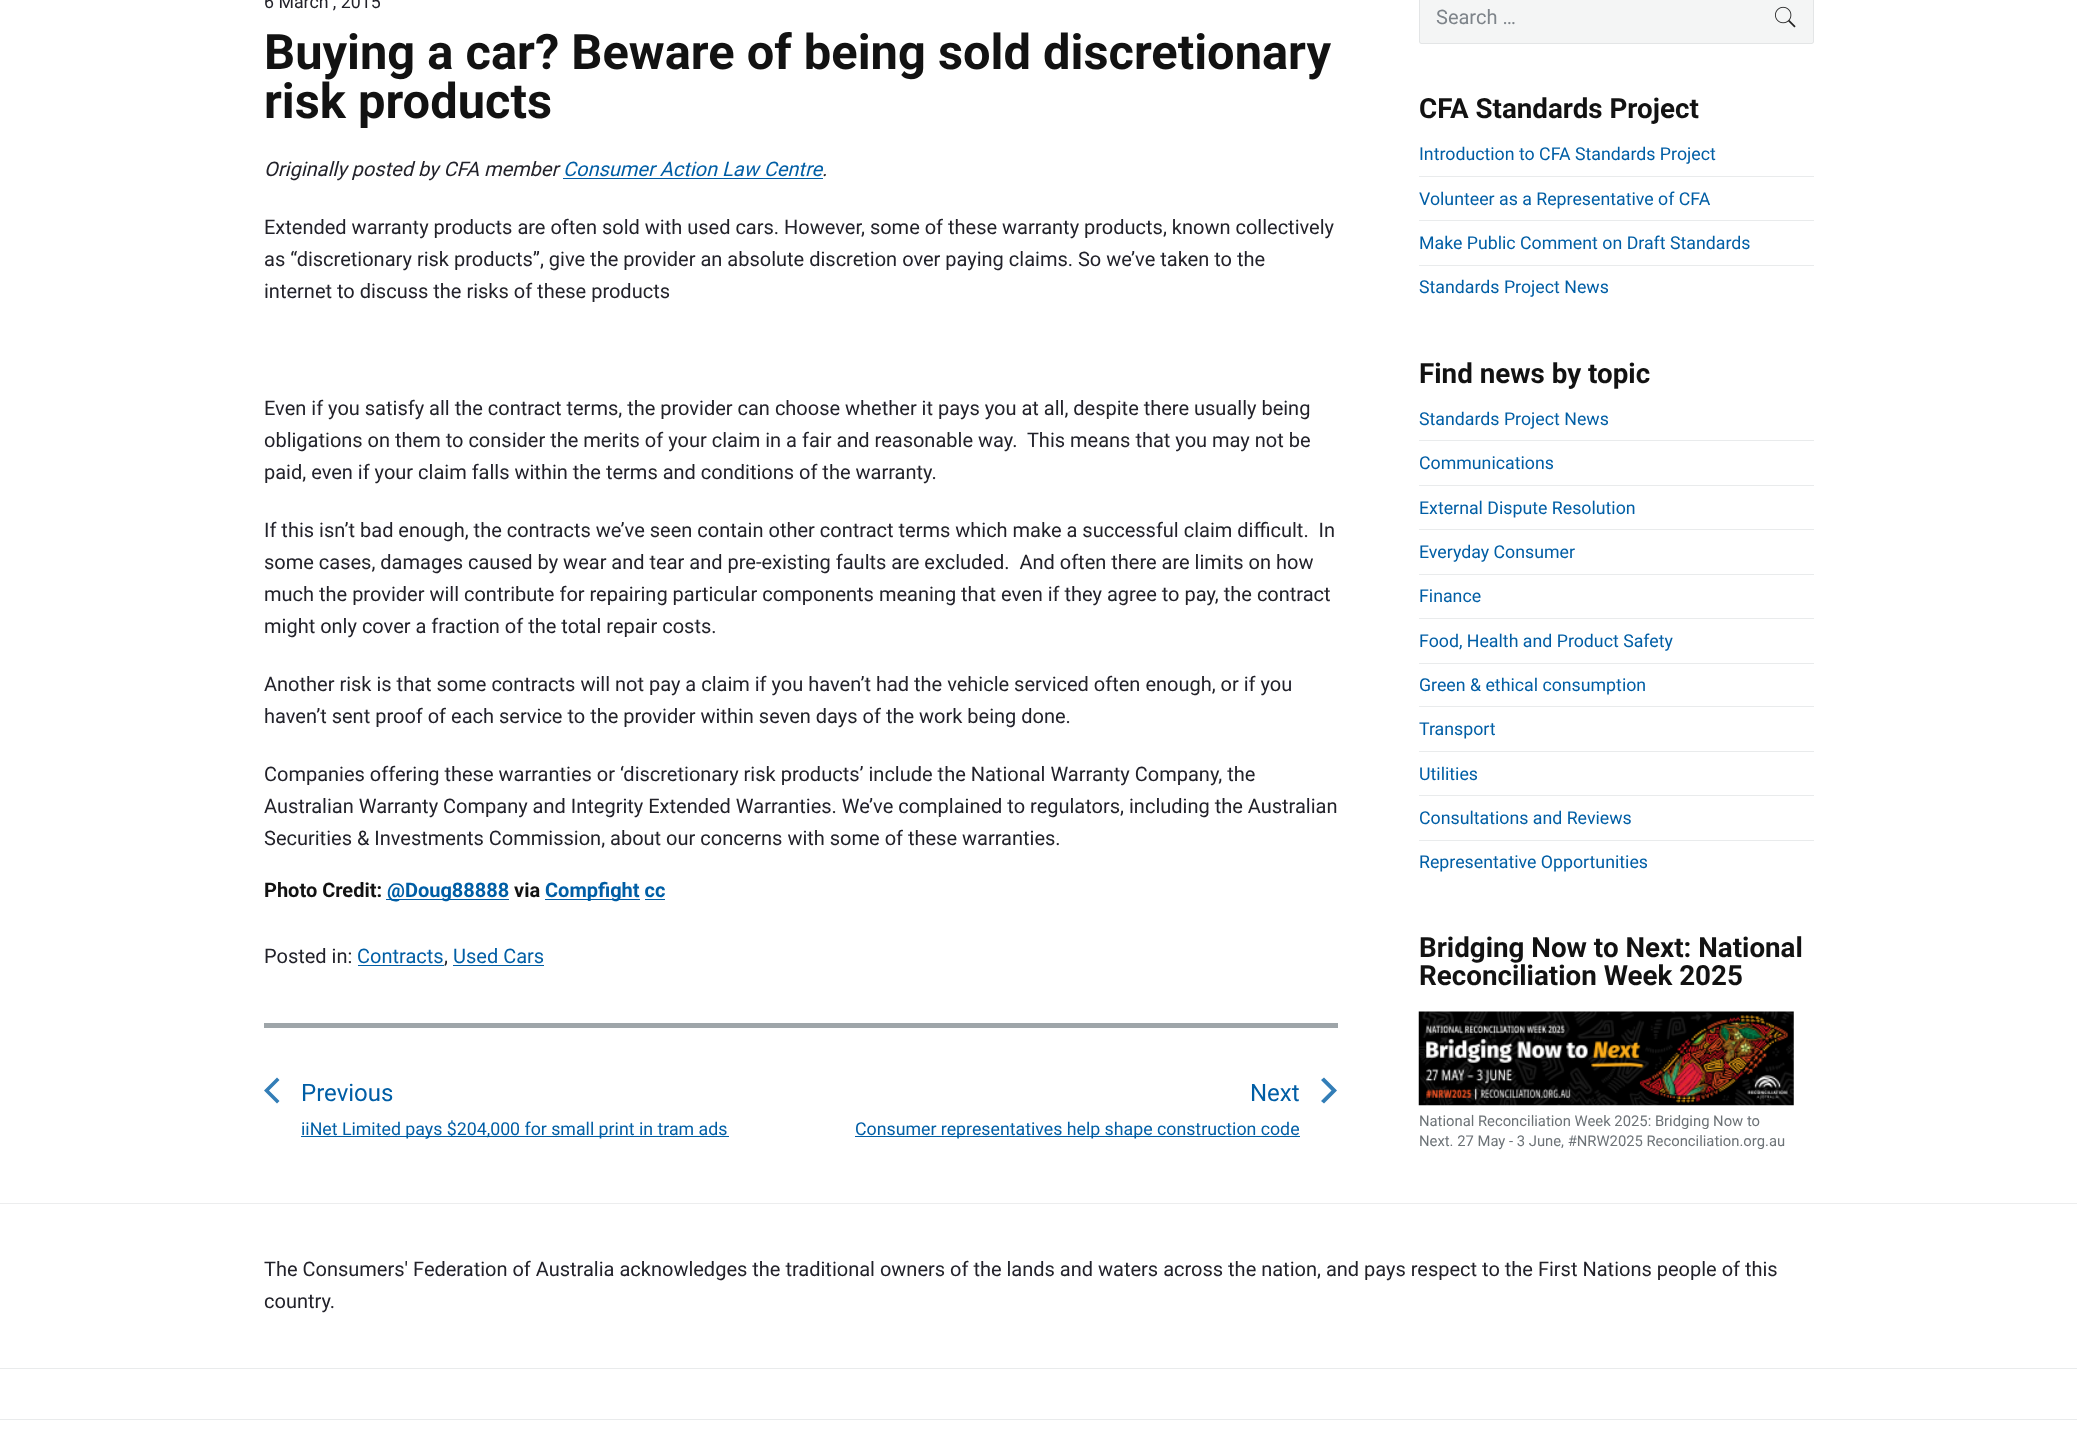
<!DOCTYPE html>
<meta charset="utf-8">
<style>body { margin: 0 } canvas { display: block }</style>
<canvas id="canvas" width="2077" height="1433"></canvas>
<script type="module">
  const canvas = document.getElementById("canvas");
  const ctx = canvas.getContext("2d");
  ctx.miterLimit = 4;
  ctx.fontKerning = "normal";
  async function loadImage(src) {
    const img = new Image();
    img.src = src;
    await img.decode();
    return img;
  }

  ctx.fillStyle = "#ffffff";
  ctx.fillRect(0, 0, 2077, 1433);
  ctx.font = "17.75px Roboto";
  ctx.fillStyle = "#22222a";
  ctx.fillText("6 March , 2015", 264, 8);
  ctx.font = "bold 48.8px Roboto";
  ctx.fillStyle = "#121212";
  ctx.fillText("Buying a car? Beware of being sold discretionary", 264, 69);
  ctx.fillText("risk products", 264, 118);
  ctx.font = "italic 20px Roboto";
  ctx.fillStyle = "#22222a";
  ctx.fillText("Originally posted by CFA member", 264, 176);
  ctx.fillStyle = "#005ea5";
  ctx.fillText("Consumer Action Law Centre", 563, 176);
  ctx.fillStyle = "#22222a";
  ctx.fillText(".", 822, 176);
  ctx.fillStyle = "#005ea5";
  ctx.fillRect(563, 178, 260, 1);
  ctx.font = "20px Roboto";
  ctx.fillStyle = "#22222a";
  ctx.fillText("Extended warranty products are often sold with used cars. However, some of these warranty products, known collectively", 264, 234);
  ctx.fillText("as “discretionary risk products”, give the provider an absolute discretion over paying claims. So we’ve taken to the", 264, 266);
  ctx.fillText("internet to discuss the risks of these products", 264, 298);
  ctx.fillText("Even if you satisfy all the contract terms, the provider can choose whether it pays you at all, despite there usually being", 264, 415);
  ctx.fillText("obligations on them to consider the merits of your claim in a fair and reasonable way.  This means that you may not be", 264, 447);
  ctx.fillText("paid, even if your claim falls within the terms and conditions of the warranty.", 264, 479);
  ctx.fillText("If this isn’t bad enough, the contracts we’ve seen contain other contract terms which make a successful claim difficult.  In", 264, 537);
  ctx.fillText("some cases, damages caused by wear and tear and pre-existing faults are excluded.  And often there are limits on how", 264, 569);
  ctx.fillText("much the provider will contribute for repairing particular components meaning that even if they agree to pay, the contract", 264, 601);
  ctx.fillText("might only cover a fraction of the total repair costs.", 264, 633);
  ctx.fillText("Another risk is that some contracts will not pay a claim if you haven’t had the vehicle serviced often enough, or if you", 264, 691);
  ctx.fillText("haven’t sent proof of each service to the provider within seven days of the work being done.", 264, 723);
  ctx.fillText("Companies offering these warranties or ‘discretionary risk products’ include the National Warranty Company, the", 264, 781);
  ctx.fillText("Australian Warranty Company and Integrity Extended Warranties. We’ve complained to regulators, including the Australian", 264, 813);
  ctx.fillText("Securities & Investments Commission, about our concerns with some of these warranties.", 264, 845);
  ctx.font = "bold 20px Roboto";
  ctx.fillStyle = "#121212";
  ctx.fillText("Photo Credit:", 264, 897);
  ctx.fillStyle = "#005ea5";
  ctx.fillRect(386, 899, 123, 1);
  ctx.fillText("@Doug88888", 387, 897);
  ctx.fillStyle = "#121212";
  ctx.fillText("via", 514, 897);
  ctx.fillStyle = "#005ea5";
  ctx.fillRect(545, 899, 95, 1);
  ctx.fillText("Compfight cc", 545, 897);
  ctx.fillRect(645, 899, 20, 1);
  ctx.font = "20px Roboto";
  ctx.fillStyle = "#22222a";
  ctx.fillText("Posted in:", 264, 963);
  ctx.fillStyle = "#005ea5";
  ctx.fillText("Contracts", 357, 963);
  ctx.fillRect(358, 965, 86, 1);
  ctx.fillStyle = "#22222a";
  ctx.fillText(",", 444, 963);
  ctx.fillStyle = "#005ea5";
  ctx.fillText("Used Cars", 453, 963);
  ctx.fillRect(453, 965, 91, 1);
  ctx.fillStyle = "#9ea5a9";
  ctx.fillRect(264, 1023, 1074, 5);
  ctx.fillStyle = "#337eb7";
  ctx.beginPath();
  ctx.moveTo(279.5, 1080);
  ctx.lineTo(269, 1090.5);
  ctx.lineTo(279.5, 1101);
  ctx.lineTo(277, 1103.5);
  ctx.lineTo(264, 1090.5);
  ctx.lineTo(277, 1077.5);
  ctx.closePath();
  ctx.fill();
  ctx.font = "24px Roboto";
  ctx.fillStyle = "#005ea5";
  ctx.fillText("Previous", 301, 1101);
  ctx.fillRect(301, 1136, 428, 1);
  ctx.font = "17.75px Roboto";
  ctx.fillText("iiNet Limited pays $204,000 for small print in tram ads", 301, 1135);
  ctx.font = "24px Roboto";
  ctx.fillText("Next", 1250, 1101);
  ctx.fillStyle = "#337eb7";
  ctx.beginPath();
  ctx.moveTo(1331.5, 1090.5);
  ctx.lineTo(1321, 1080);
  ctx.lineTo(1324, 1077.5);
  ctx.lineTo(1337, 1090.5);
  ctx.lineTo(1324, 1103.5);
  ctx.lineTo(1321, 1101);
  ctx.closePath();
  ctx.fill();
  ctx.fillStyle = "#005ea5";
  ctx.fillRect(855, 1136, 445, 1);
  ctx.font = "17.75px Roboto";
  ctx.fillText("Consumer representatives help shape construction code", 855, 1135);
  ctx.fillStyle = "#f4f5f5";
  ctx.beginPath();
  ctx.roundRect(1419, -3, 395, 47, 2.5);
  ctx.fill();
  ctx.beginPath();
  ctx.roundRect(1419.5, -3.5, 394, 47, 2);
  ctx.strokeStyle = "rgba(39, 55, 64, 0.08)";
  ctx.stroke();
  ctx.font = "20px Roboto";
  ctx.fillStyle = "#7e848a";
  ctx.fillText("Search …", 1436, 24);
  ctx.drawImage(await loadImage("img1.png"), 1775, 6, 21, 22);
  ctx.font = "bold 27.75px Roboto";
  ctx.fillStyle = "#121212";
  ctx.fillText("CFA Standards Project", 1419, 118);
  ctx.fillStyle = "#e9ebec";
  ctx.fillRect(1419, 176, 395, 1);
  ctx.font = "17.75px Roboto";
  ctx.fillStyle = "#005ea5";
  ctx.fillText("Introduction to CFA Standards Project", 1419, 160);
  ctx.fillStyle = "#e9ebec";
  ctx.fillRect(1419, 220, 395, 1);
  ctx.fillStyle = "#005ea5";
  ctx.fillText("Volunteer as a Representative of CFA", 1419, 205);
  ctx.fillStyle = "#e9ebec";
  ctx.fillRect(1419, 265, 395, 1);
  ctx.fillStyle = "#005ea5";
  ctx.fillText("Make Public Comment on Draft Standards", 1419, 249);
  ctx.fillText("Standards Project News", 1419, 293);
  ctx.font = "bold 27.75px Roboto";
  ctx.fillStyle = "#121212";
  ctx.fillText("Find news by topic", 1419, 383);
  ctx.fillStyle = "#e9ebec";
  ctx.fillRect(1419, 440, 395, 1);
  ctx.font = "17.75px Roboto";
  ctx.fillStyle = "#005ea5";
  ctx.fillText("Standards Project News", 1419, 425);
  ctx.fillStyle = "#e9ebec";
  ctx.fillRect(1419, 485, 395, 1);
  ctx.fillStyle = "#005ea5";
  ctx.fillText("Communications", 1419, 469);
  ctx.fillStyle = "#e9ebec";
  ctx.fillRect(1419, 529, 395, 1);
  ctx.fillStyle = "#005ea5";
  ctx.fillText("External Dispute Resolution", 1419, 514);
  ctx.fillStyle = "#e9ebec";
  ctx.fillRect(1419, 574, 395, 1);
  ctx.fillStyle = "#005ea5";
  ctx.fillText("Everyday Consumer", 1419, 558);
  ctx.fillStyle = "#e9ebec";
  ctx.fillRect(1419, 618, 395, 1);
  ctx.fillStyle = "#005ea5";
  ctx.fillText("Finance", 1419, 602);
  ctx.fillStyle = "#e9ebec";
  ctx.fillRect(1419, 663, 395, 1);
  ctx.fillStyle = "#005ea5";
  ctx.fillText("Food, Health and Product Safety", 1419, 647);
  ctx.fillStyle = "#e9ebec";
  ctx.fillRect(1419, 706, 395, 1);
  ctx.fillStyle = "#005ea5";
  ctx.fillText("Green & ethical consumption", 1419, 691);
  ctx.fillStyle = "#e9ebec";
  ctx.fillRect(1419, 751, 395, 1);
  ctx.fillStyle = "#005ea5";
  ctx.fillText("Transport", 1419, 735);
  ctx.fillStyle = "#e9ebec";
  ctx.fillRect(1419, 795, 395, 1);
  ctx.fillStyle = "#005ea5";
  ctx.fillText("Utilities", 1419, 780);
  ctx.fillStyle = "#e9ebec";
  ctx.fillRect(1419, 840, 395, 1);
  ctx.fillStyle = "#005ea5";
  ctx.fillText("Consultations and Reviews", 1419, 824);
  ctx.fillText("Representative Opportunities", 1419, 868);
  ctx.font = "bold 27.75px Roboto";
  ctx.fillStyle = "#121212";
  ctx.fillText("Bridging Now to Next: National", 1419, 957);
  ctx.fillText("Reconciliation Week 2025", 1419, 985);
  ctx.drawImage(await loadImage("img2.png"), 1418, 1011, 376, 95);
  ctx.font = "14.8px Roboto";
  ctx.fillStyle = "#6d7377";
  ctx.fillText("National Reconciliation Week 2025: Bridging Now to", 1419, 1126);
  ctx.fillText("Next. 27 May - 3 June, #NRW2025 Reconciliation.org.au", 1419, 1146);
  ctx.fillStyle = "#ecedee";
  ctx.fillRect(0, 1203, 2077, 1);
  ctx.font = "20px Roboto";
  ctx.fillStyle = "#22222a";
  ctx.fillText("The Consumers' Federation of Australia acknowledges the traditional owners of the lands and waters across the nation, and pays respect to the First Nations people of this", 264, 1276);
  ctx.fillText("country.", 264, 1308);
  ctx.fillStyle = "#e9ebec";
  ctx.fillRect(0, 1368, 2077, 1);
  ctx.fillRect(0, 1419, 2077, 1);
</script>
